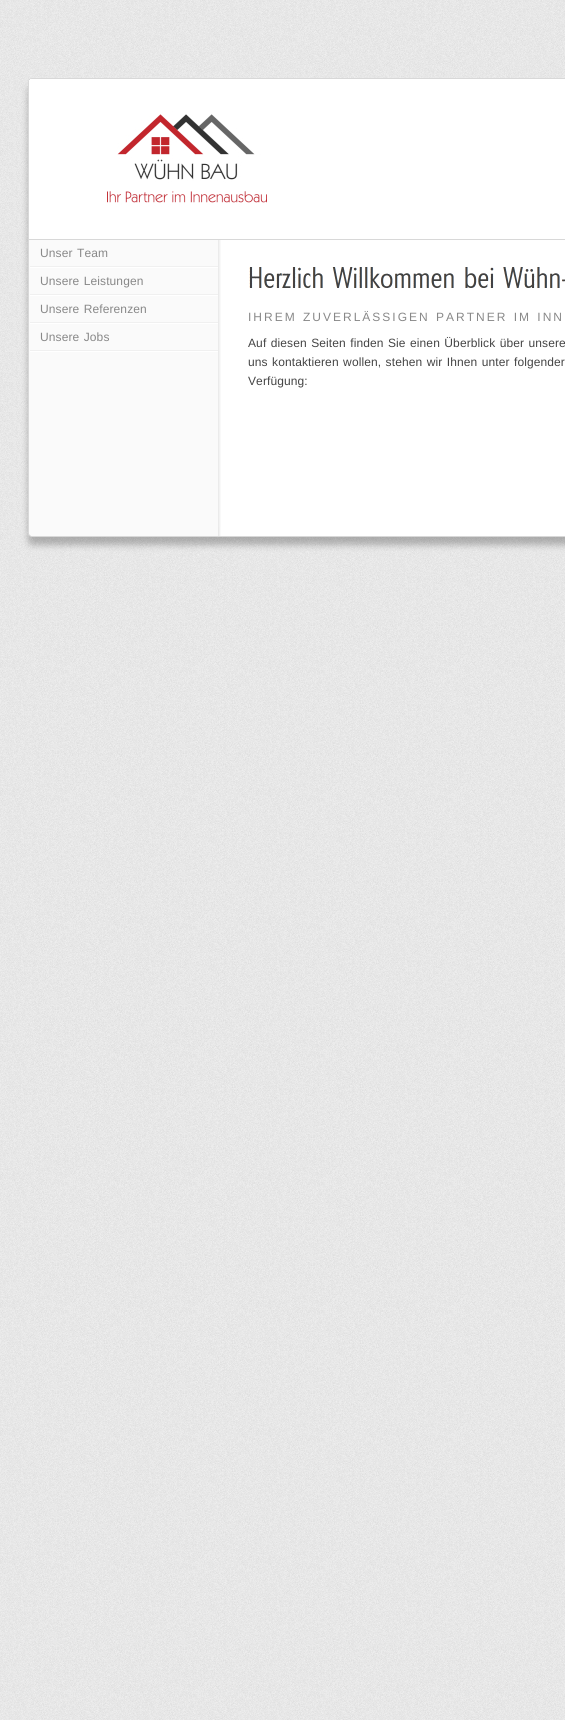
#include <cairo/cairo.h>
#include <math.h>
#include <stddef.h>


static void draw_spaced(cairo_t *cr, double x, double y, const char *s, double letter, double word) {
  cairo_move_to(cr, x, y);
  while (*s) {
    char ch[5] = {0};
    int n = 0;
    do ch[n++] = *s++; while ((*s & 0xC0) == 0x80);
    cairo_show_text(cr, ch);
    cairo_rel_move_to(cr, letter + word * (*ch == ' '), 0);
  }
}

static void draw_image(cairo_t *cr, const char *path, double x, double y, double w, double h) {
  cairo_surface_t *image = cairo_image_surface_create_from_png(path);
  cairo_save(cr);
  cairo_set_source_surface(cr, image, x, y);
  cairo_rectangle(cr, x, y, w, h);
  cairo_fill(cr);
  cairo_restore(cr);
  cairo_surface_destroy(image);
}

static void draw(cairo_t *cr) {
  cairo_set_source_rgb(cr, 1, 1, 1);
  cairo_paint(cr);
  draw_image(cr, "images/1.png", 0, 0, 565, 1720);
  draw_image(cr, "images/2.png", 8, 8, 557, 60);
  cairo_set_source_rgb(cr, 1, 1, 1);
  cairo_rectangle(cr, 221, 79, 344, 448);
  cairo_fill(cr);
  draw_image(cr, "images/3.png", 8, 98, 213, 429);
  draw_image(cr, "images/5.png", 29, 79, 238, 160);
  draw_image(cr, "images/4.png", 8, 68, 557, 30);
  cairo_set_source_rgb(cr, 216 / 255.0, 216 / 255.0, 216 / 255.0);
  cairo_rectangle(cr, 29, 239, 536, 1);
  cairo_fill(cr);
  draw_image(cr, "images/6.png", 30, 266, 188, 2);
  draw_image(cr, "images/6.png", 30, 294, 188, 2);
  draw_image(cr, "images/6.png", 30, 322, 188, 2);
  draw_image(cr, "images/6.png", 30, 350, 188, 2);
  draw_image(cr, "images/7.png", 249, 267, 316, 21);
  draw_image(cr, "images/8.png", 8, 527, 557, 30);
  cairo_select_font_face(cr, "Liberation Sans", CAIRO_FONT_SLANT_NORMAL, CAIRO_FONT_WEIGHT_NORMAL);
  cairo_set_font_size(cr, 12);
  cairo_set_source_rgb(cr, 136 / 255.0, 136 / 255.0, 136 / 255.0);
  draw_spaced(cr, 40, 257, "Unser Team", 0.1, 1);
  draw_spaced(cr, 40, 285, "Unsere Leistungen", 0.1, 1);
  draw_spaced(cr, 40, 313, "Unsere Referenzen", 0.1, 1);
  draw_spaced(cr, 40, 341, "Unsere Jobs", 0.1, 1);
  draw_spaced(cr, 248, 321, "IHREM ZUVERLÄSSIGEN PARTNER IM INN", 2, 1);
  cairo_set_source_rgb(cr, 68 / 255.0, 68 / 255.0, 68 / 255.0);
  draw_spaced(cr, 248, 347, "Auf diesen Seiten finden Sie einen Überblick über unsere", 0.1, 1);
  draw_spaced(cr, 248, 366, "uns kontaktieren wollen, stehen wir Ihnen unter folgender", 0.1, 1);
  draw_spaced(cr, 248, 385, "Verfügung:", 0.1, 0);
}

int main(void) {
  cairo_surface_t *surface = cairo_image_surface_create(CAIRO_FORMAT_RGB24, 565, 1720);
  cairo_t *cr = cairo_create(surface);
  cairo_font_options_t *options = cairo_font_options_create();
  cairo_font_options_set_hint_metrics(options, CAIRO_HINT_METRICS_OFF);
  cairo_font_options_set_hint_style(options, CAIRO_HINT_STYLE_NONE);
  cairo_set_font_options(cr, options);
  cairo_set_miter_limit(cr, 4);
  draw(cr);
  cairo_surface_write_to_png(surface, "out.png");
  cairo_font_options_destroy(options);
  cairo_destroy(cr);
  cairo_surface_destroy(surface);
  return 0;
}
